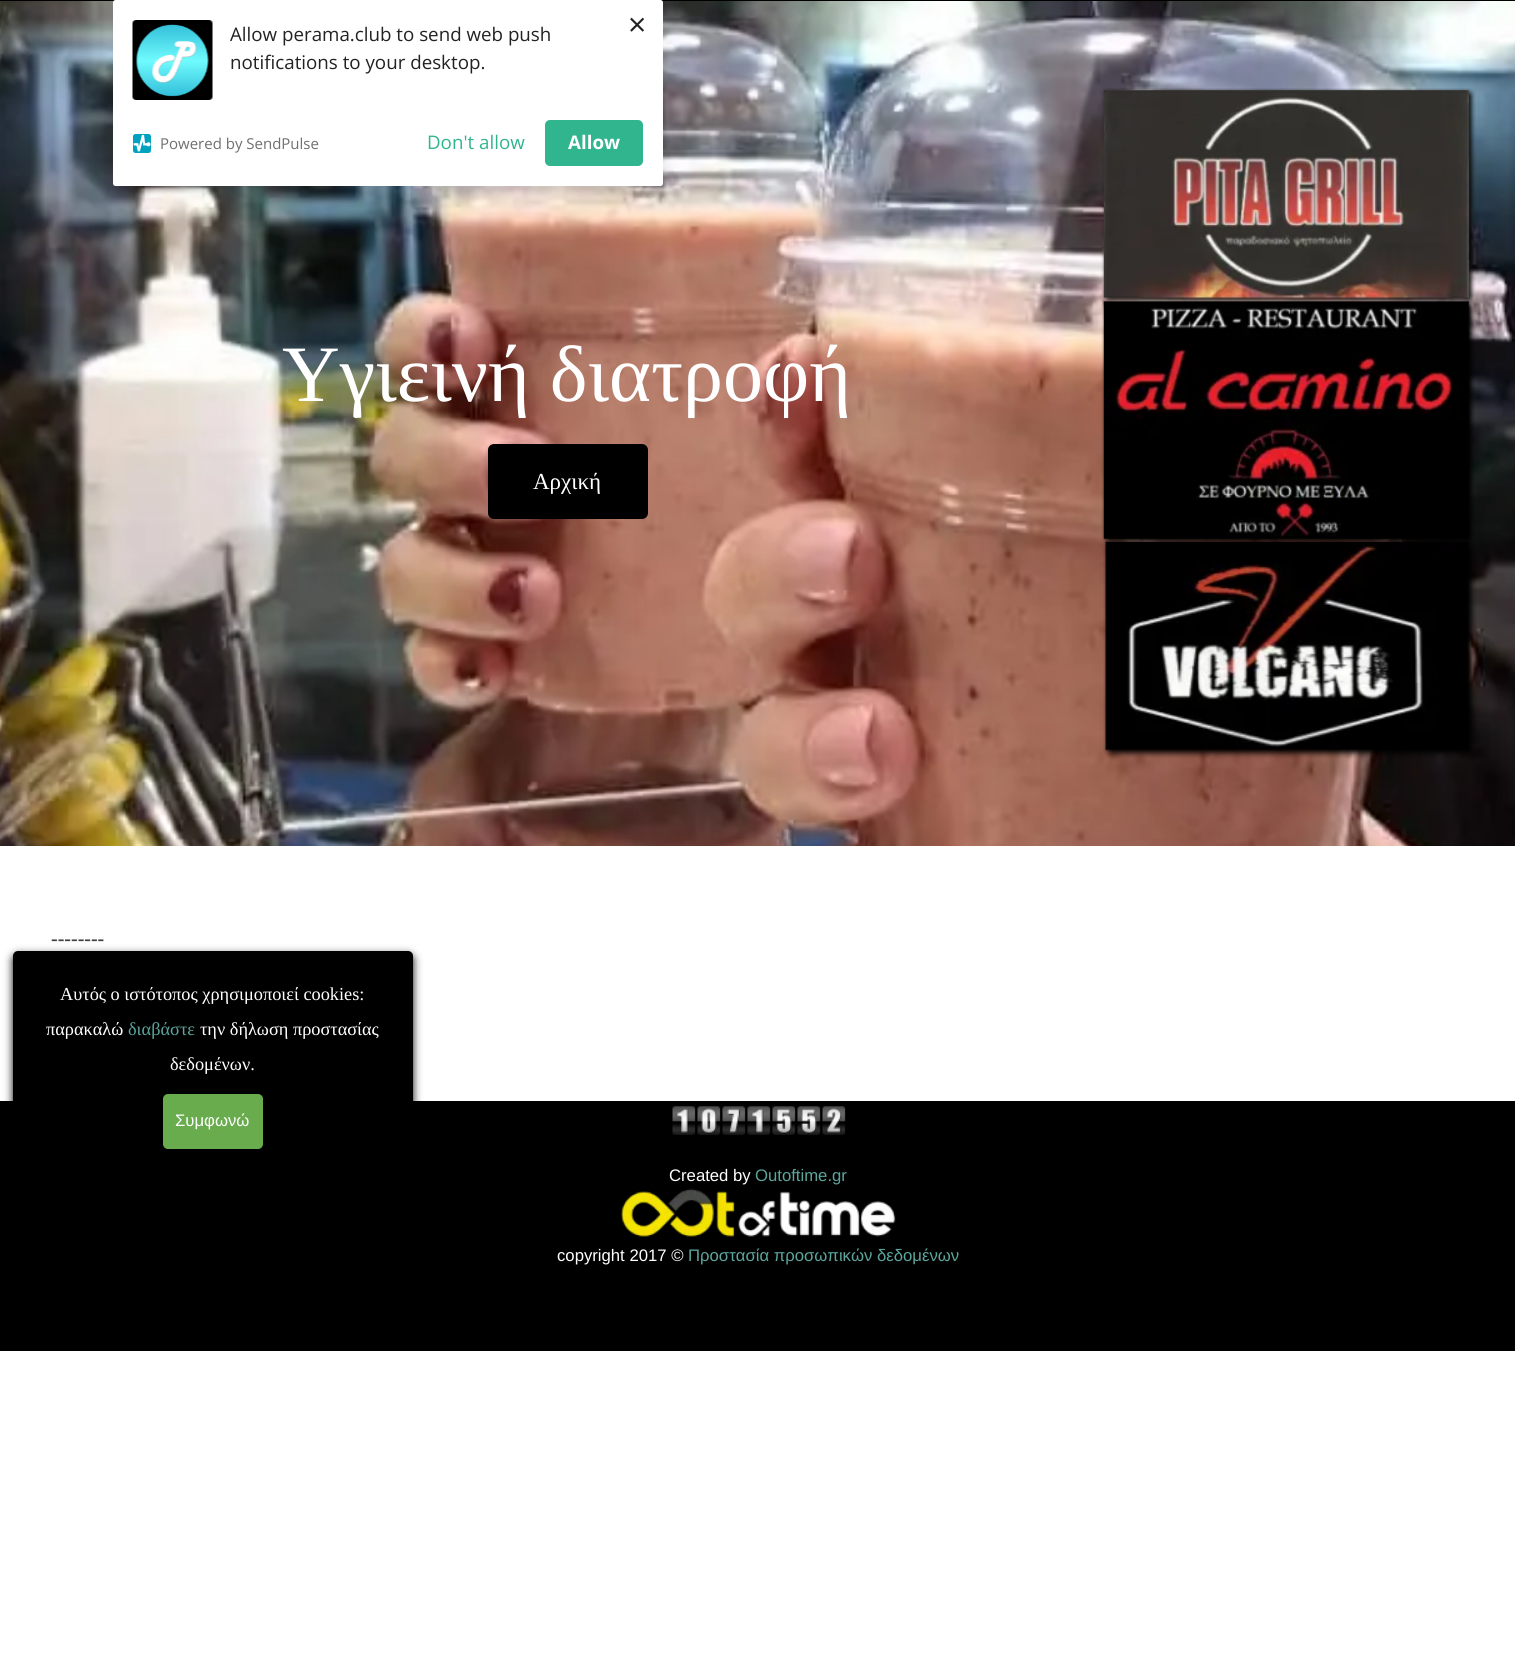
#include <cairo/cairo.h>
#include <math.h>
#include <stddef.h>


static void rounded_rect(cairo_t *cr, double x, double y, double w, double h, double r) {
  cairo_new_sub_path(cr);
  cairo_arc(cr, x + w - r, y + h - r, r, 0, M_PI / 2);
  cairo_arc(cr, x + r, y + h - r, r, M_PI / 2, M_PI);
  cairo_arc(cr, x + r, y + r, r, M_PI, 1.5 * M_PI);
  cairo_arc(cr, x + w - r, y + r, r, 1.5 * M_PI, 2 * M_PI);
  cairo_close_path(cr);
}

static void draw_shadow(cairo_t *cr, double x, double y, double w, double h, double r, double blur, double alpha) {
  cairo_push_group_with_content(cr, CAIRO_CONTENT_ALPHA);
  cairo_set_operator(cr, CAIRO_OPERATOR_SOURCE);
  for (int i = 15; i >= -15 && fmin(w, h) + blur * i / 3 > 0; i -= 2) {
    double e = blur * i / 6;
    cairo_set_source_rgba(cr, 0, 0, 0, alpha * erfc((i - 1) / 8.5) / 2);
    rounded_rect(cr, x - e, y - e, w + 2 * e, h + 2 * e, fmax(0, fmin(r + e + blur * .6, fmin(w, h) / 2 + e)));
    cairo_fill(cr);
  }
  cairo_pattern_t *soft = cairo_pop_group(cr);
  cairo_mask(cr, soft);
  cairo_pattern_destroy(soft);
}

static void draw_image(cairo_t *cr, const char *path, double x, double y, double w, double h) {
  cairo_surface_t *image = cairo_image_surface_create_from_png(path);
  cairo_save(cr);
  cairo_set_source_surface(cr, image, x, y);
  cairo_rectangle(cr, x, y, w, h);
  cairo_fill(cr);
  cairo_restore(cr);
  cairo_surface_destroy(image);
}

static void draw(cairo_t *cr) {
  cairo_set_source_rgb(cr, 1, 1, 1);
  cairo_paint(cr);
  cairo_set_source_rgb(cr, 0, 0, 0);
  cairo_rectangle(cr, 0, 0, 1515, 1);
  cairo_fill(cr);
  draw_image(cr, "images/3.png", 0, 1, 1515, 845);
  cairo_set_source_rgb(cr, 0, 0, 0);
  draw_shadow(cr, 113, 5, 550, 186, 2.5, 6, 0.1);
  cairo_set_source_rgb(cr, 1, 1, 1);
  rounded_rect(cr, 113, 0, 550, 186, 2.5);
  cairo_fill(cr);
  draw_image(cr, "images/1.png", 132, 20, 81, 80);
  draw_image(cr, "images/2.png", 133, 134, 18, 19);
  cairo_set_source_rgb(cr, 49 / 255.0, 181 / 255.0, 142 / 255.0);
  rounded_rect(cr, 545, 120, 98, 46, 5);
  cairo_fill(cr);
  cairo_set_source_rgb(cr, 0, 0, 0);
  rounded_rect(cr, 488, 444, 160, 75, 6);
  cairo_fill(cr);
  draw_image(cr, "images/5.png", 1101, 299, 375, 247);
  draw_image(cr, "images/4.png", 1101, 88, 375, 216);
  draw_image(cr, "images/6.png", 1103, 540, 374, 219);
  cairo_rectangle(cr, 0, 1101, 1515, 250);
  cairo_fill(cr);
  draw_image(cr, "images/7.png", 672, 1106, 174, 29);
  draw_image(cr, "images/8.png", 621, 1188, 275, 49);
  cairo_set_source_rgb(cr, 0, 0, 0);
  draw_shadow(cr, 13, 955, 400, 223, 5, 4.5, 1);
  cairo_set_source_rgb(cr, 0, 0, 0);
  rounded_rect(cr, 13, 951, 400, 223, 5);
  cairo_fill(cr);
  cairo_set_source_rgb(cr, 105 / 255.0, 172 / 255.0, 77 / 255.0);
  rounded_rect(cr, 163, 1094, 100, 55, 5);
  cairo_fill(cr);
  cairo_select_font_face(cr, "Open Sans", CAIRO_FONT_SLANT_NORMAL, CAIRO_FONT_WEIGHT_NORMAL);
  cairo_set_font_size(cr, 32);
  cairo_set_source_rgb(cr, 34 / 255.0, 34 / 255.0, 34 / 255.0);
  cairo_move_to(cr, 628, 36);
  cairo_show_text(cr, "×");
  cairo_set_font_size(cr, 18.75);
  cairo_move_to(cr, 230, 41);
  cairo_show_text(cr, "Allow perama.club to send web push");
  cairo_move_to(cr, 230, 69);
  cairo_show_text(cr, "notifications to your desktop.");
  cairo_set_font_size(cr, 15);
  cairo_set_source_rgb(cr, 111 / 255.0, 111 / 255.0, 111 / 255.0);
  cairo_move_to(cr, 160, 149);
  cairo_show_text(cr, "Powered by SendPulse");
  cairo_set_font_size(cr, 18.75);
  cairo_set_source_rgb(cr, 49 / 255.0, 181 / 255.0, 142 / 255.0);
  cairo_move_to(cr, 427, 149);
  cairo_show_text(cr, "Don't allow");
  cairo_select_font_face(cr, "Open Sans", CAIRO_FONT_SLANT_NORMAL, CAIRO_FONT_WEIGHT_BOLD);
  cairo_set_source_rgb(cr, 1, 1, 1);
  cairo_move_to(cr, 568, 149);
  cairo_show_text(cr, "Allow");
  cairo_select_font_face(cr, "Liberation Serif", CAIRO_FONT_SLANT_NORMAL, CAIRO_FONT_WEIGHT_NORMAL);
  cairo_set_font_size(cr, 80);
  cairo_move_to(cr, 282, 401);
  cairo_show_text(cr, "Υγιεινή διατροφή");
  cairo_set_font_size(cr, 23);
  cairo_move_to(cr, 533, 489);
  cairo_show_text(cr, "Αρχική");
  cairo_select_font_face(cr, "Liberation Serif", CAIRO_FONT_SLANT_NORMAL, CAIRO_FONT_WEIGHT_BOLD);
  cairo_set_font_size(cr, 20);
  cairo_set_source_rgb(cr, 64 / 255.0, 64 / 255.0, 64 / 255.0);
  cairo_move_to(cr, 51, 945);
  cairo_show_text(cr, "--------");
  cairo_select_font_face(cr, "Liberation Sans", CAIRO_FONT_SLANT_NORMAL, CAIRO_FONT_WEIGHT_NORMAL);
  cairo_set_font_size(cr, 16.7);
  cairo_set_source_rgb(cr, 1, 1, 1);
  cairo_move_to(cr, 669, 1181);
  cairo_show_text(cr, "Created by");
  cairo_set_source_rgb(cr, 92 / 255.0, 166 / 255.0, 157 / 255.0);
  cairo_move_to(cr, 755, 1181);
  cairo_show_text(cr, "Outoftime.gr");
  cairo_set_source_rgb(cr, 1, 1, 1);
  cairo_move_to(cr, 557, 1261);
  cairo_show_text(cr, "copyright 2017 ©");
  cairo_set_source_rgb(cr, 92 / 255.0, 166 / 255.0, 157 / 255.0);
  cairo_move_to(cr, 688, 1261);
  cairo_show_text(cr, "Προστασία προσωπικών δεδομένων");
  cairo_select_font_face(cr, "Liberation Serif", CAIRO_FONT_SLANT_NORMAL, CAIRO_FONT_WEIGHT_NORMAL);
  cairo_set_font_size(cr, 18.3);
  cairo_set_source_rgb(cr, 1, 1, 1);
  cairo_move_to(cr, 60, 1000);
  cairo_show_text(cr, "Αυτός ο ιστότοπος χρησιμοποιεί cookies:");
  cairo_move_to(cr, 46, 1035);
  cairo_show_text(cr, "παρακαλώ");
  cairo_set_source_rgb(cr, 92 / 255.0, 166 / 255.0, 157 / 255.0);
  cairo_move_to(cr, 128, 1035);
  cairo_show_text(cr, "διαβάστε");
  cairo_set_source_rgb(cr, 1, 1, 1);
  cairo_move_to(cr, 200, 1035);
  cairo_show_text(cr, "την δήλωση προστασίας");
  cairo_move_to(cr, 170, 1070);
  cairo_show_text(cr, "δεδομένων.");
  cairo_select_font_face(cr, "Liberation Sans", CAIRO_FONT_SLANT_NORMAL, CAIRO_FONT_WEIGHT_NORMAL);
  cairo_set_font_size(cr, 16.7);
  cairo_move_to(cr, 175, 1126);
  cairo_show_text(cr, "Συμφωνώ");
}

int main(void) {
  cairo_surface_t *surface = cairo_image_surface_create(CAIRO_FORMAT_RGB24, 1515, 1660);
  cairo_t *cr = cairo_create(surface);
  cairo_font_options_t *options = cairo_font_options_create();
  cairo_font_options_set_hint_metrics(options, CAIRO_HINT_METRICS_OFF);
  cairo_font_options_set_hint_style(options, CAIRO_HINT_STYLE_NONE);
  cairo_set_font_options(cr, options);
  cairo_set_miter_limit(cr, 4);
  draw(cr);
  cairo_surface_write_to_png(surface, "out.png");
  cairo_font_options_destroy(options);
  cairo_destroy(cr);
  cairo_surface_destroy(surface);
  return 0;
}
